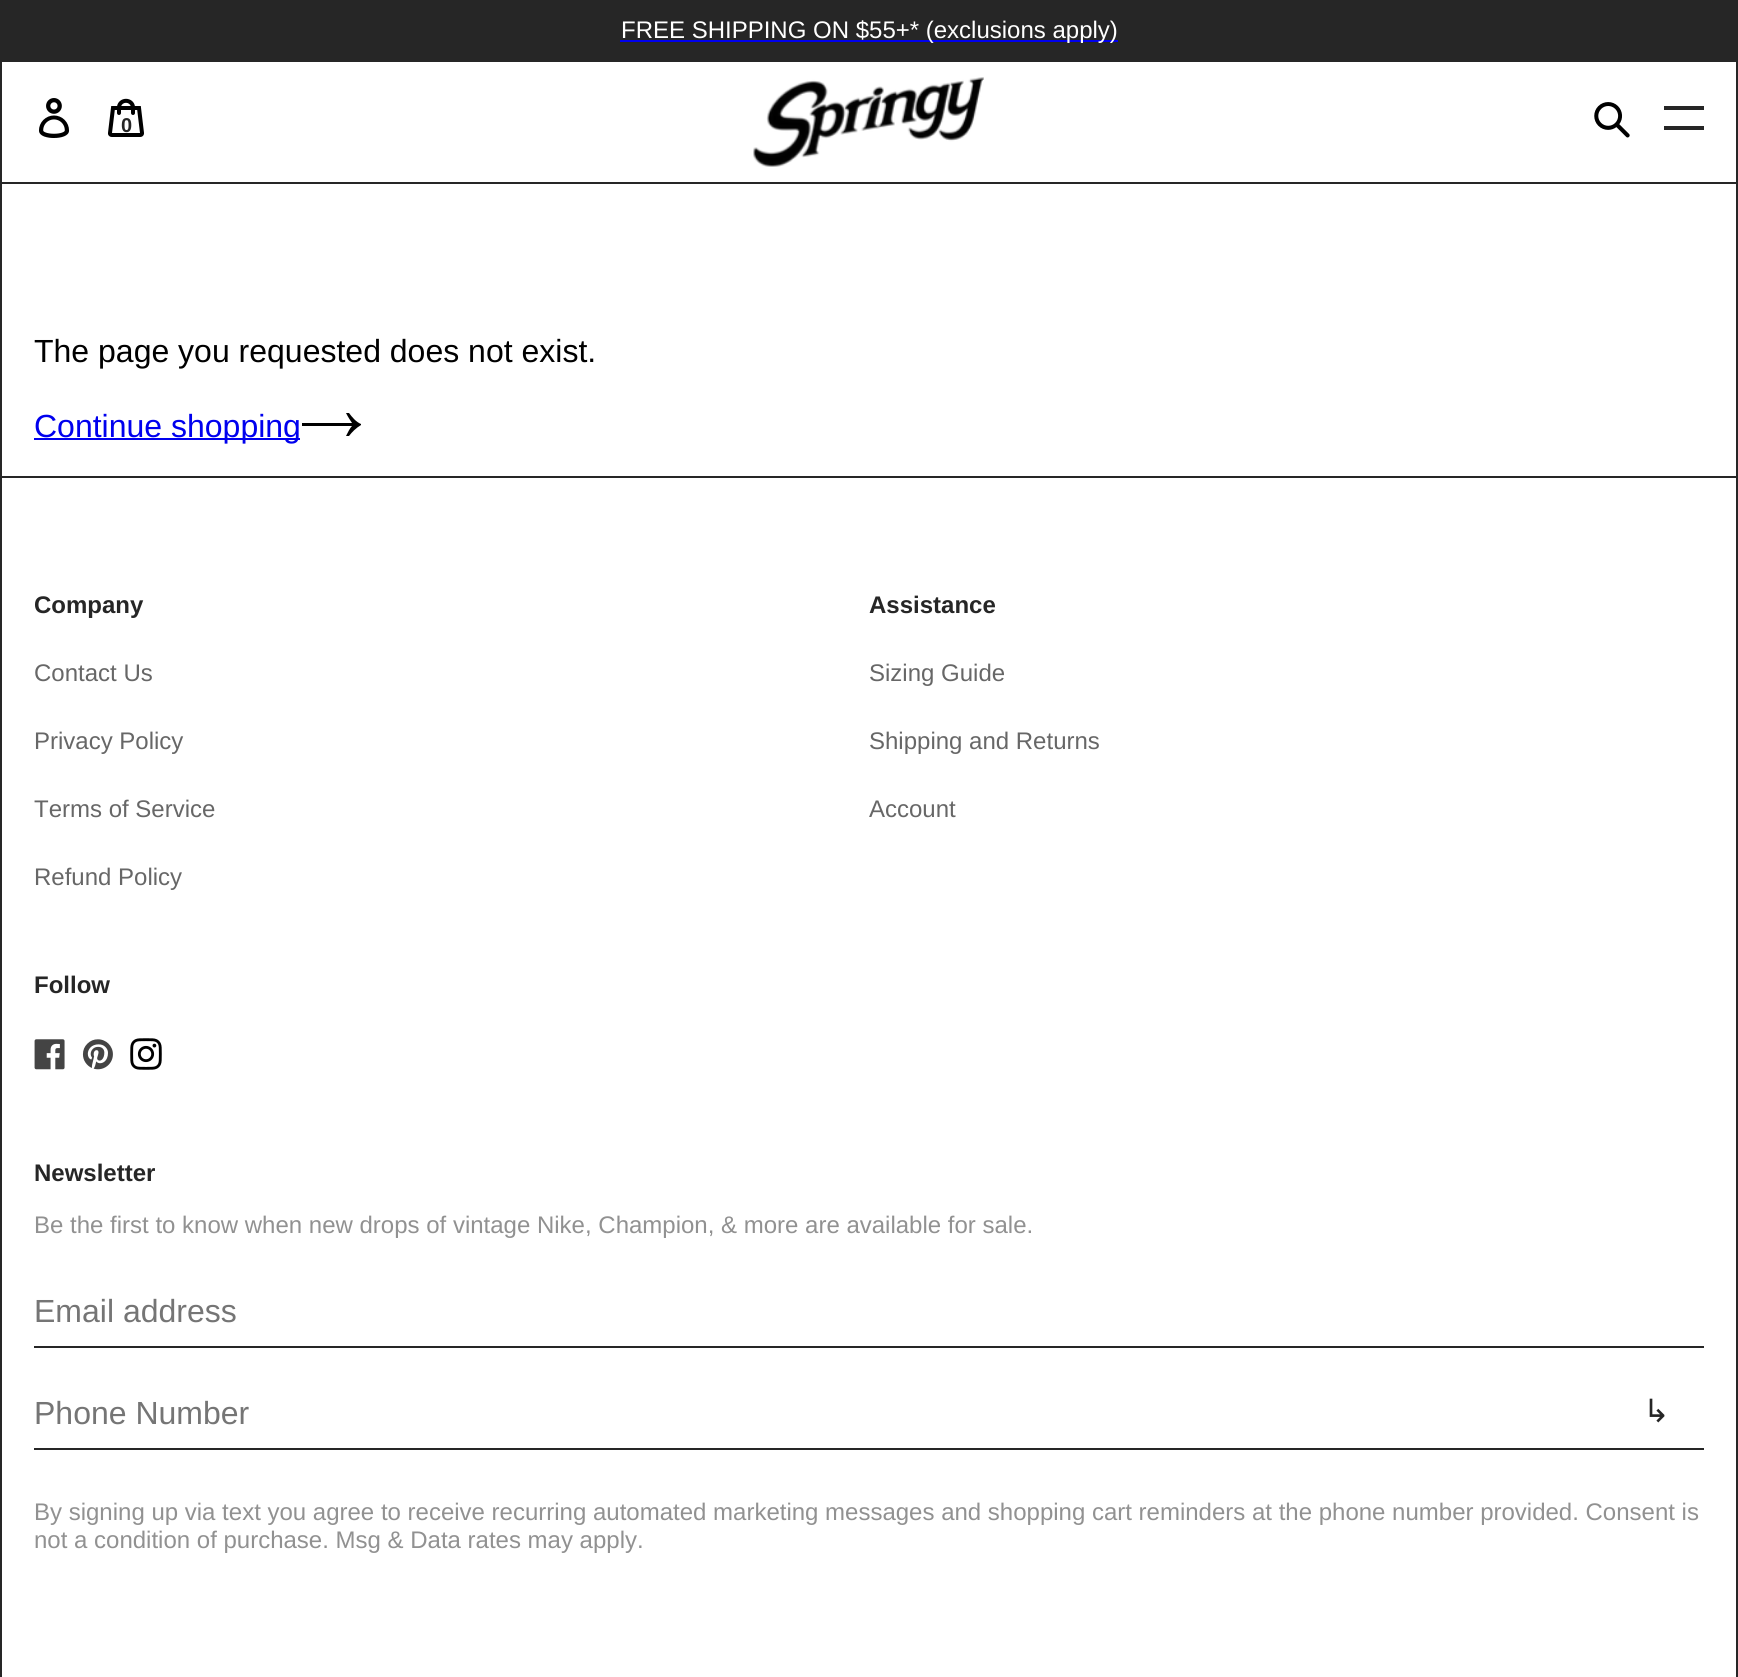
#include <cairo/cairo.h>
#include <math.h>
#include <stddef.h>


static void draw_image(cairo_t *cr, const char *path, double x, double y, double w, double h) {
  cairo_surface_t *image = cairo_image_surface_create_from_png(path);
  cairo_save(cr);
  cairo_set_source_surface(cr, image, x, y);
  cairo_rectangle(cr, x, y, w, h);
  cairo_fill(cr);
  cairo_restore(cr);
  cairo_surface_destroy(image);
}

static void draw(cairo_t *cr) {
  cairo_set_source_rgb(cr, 1, 1, 1);
  cairo_paint(cr);
  cairo_set_source_rgb(cr, 38 / 255.0, 38 / 255.0, 38 / 255.0);
  cairo_rectangle(cr, 0, 0, 1738, 60);
  cairo_fill(cr);
  cairo_set_source_rgb(cr, 0, 0, 238 / 255.0);
  cairo_rectangle(cr, 620, 40, 498, 2);
  cairo_fill(cr);
  cairo_rectangle(cr, 1, 61, 1736, 122);
  cairo_set_source_rgb(cr, 38 / 255.0, 38 / 255.0, 38 / 255.0);
  cairo_stroke(cr);
  draw_image(cr, "images/1.png", 39, 98, 31, 40);
  draw_image(cr, "images/2.png", 108, 98, 36, 39);
  draw_image(cr, "images/3.png", 753, 77, 231, 90);
  draw_image(cr, "images/4.png", 1594, 102, 36, 36);
  cairo_rectangle(cr, 1664, 106, 40, 4);
  cairo_fill(cr);
  cairo_rectangle(cr, 1664, 126, 40, 4);
  cairo_fill(cr);
  cairo_rectangle(cr, 1736, 184, 2, 292);
  cairo_fill(cr);
  cairo_rectangle(cr, 0, 184, 2, 292);
  cairo_fill(cr);
  cairo_set_source_rgb(cr, 0, 0, 238 / 255.0);
  cairo_rectangle(cr, 34, 438, 266, 2);
  cairo_fill(cr);
  cairo_set_source_rgb(cr, 0, 0, 0);
  cairo_set_fill_rule(cr, CAIRO_FILL_RULE_EVEN_ODD);
  cairo_new_path(cr);
  cairo_move_to(cr, 349, 413);
  cairo_curve_to(cr, 352, 417, 356, 422, 361, 424);
  cairo_line_to(cr, 361, 425);
  cairo_curve_to(cr, 356, 428, 352, 432, 349, 436);
  cairo_line_to(cr, 346, 436);
  cairo_curve_to(cr, 348, 432, 350, 428, 352, 426);
  cairo_line_to(cr, 302, 426);
  cairo_line_to(cr, 302, 423);
  cairo_line_to(cr, 352, 423);
  cairo_curve_to(cr, 350, 420, 348, 417, 346, 413);
  cairo_close_path(cr);
  cairo_fill(cr);
  cairo_rectangle(cr, 1, 477, 1736, 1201);
  cairo_set_source_rgb(cr, 38 / 255.0, 38 / 255.0, 38 / 255.0);
  cairo_stroke(cr);
  draw_image(cr, "images/5.png", 34, 1039, 31, 31);
  draw_image(cr, "images/6.png", 82, 1039, 31, 31);
  draw_image(cr, "images/7.png", 130, 1038, 32, 32);
  cairo_rectangle(cr, 34, 1346, 1670, 2);
  cairo_fill(cr);
  cairo_rectangle(cr, 34, 1448, 1670, 2);
  cairo_fill(cr);
  cairo_select_font_face(cr, "Liberation Sans", CAIRO_FONT_SLANT_NORMAL, CAIRO_FONT_WEIGHT_NORMAL);
  cairo_set_font_size(cr, 24);
  cairo_set_source_rgb(cr, 1, 1, 1);
  cairo_move_to(cr, 621, 38);
  cairo_show_text(cr, "FREE SHIPPING ON $55+* (exclusions apply)");
  cairo_select_font_face(cr, "Liberation Sans", CAIRO_FONT_SLANT_NORMAL, CAIRO_FONT_WEIGHT_BOLD);
  cairo_set_font_size(cr, 20);
  cairo_set_source_rgb(cr, 38 / 255.0, 38 / 255.0, 38 / 255.0);
  cairo_move_to(cr, 121, 132);
  cairo_show_text(cr, "0");
  cairo_select_font_face(cr, "Liberation Sans", CAIRO_FONT_SLANT_NORMAL, CAIRO_FONT_WEIGHT_NORMAL);
  cairo_set_font_size(cr, 32);
  cairo_set_source_rgb(cr, 0, 0, 0);
  cairo_move_to(cr, 34, 362);
  cairo_show_text(cr, "The page you requested does not exist.");
  cairo_set_source_rgb(cr, 0, 0, 238 / 255.0);
  cairo_move_to(cr, 34, 437);
  cairo_show_text(cr, "Continue shopping");
  cairo_select_font_face(cr, "Liberation Sans", CAIRO_FONT_SLANT_NORMAL, CAIRO_FONT_WEIGHT_BOLD);
  cairo_set_font_size(cr, 24);
  cairo_set_source_rgb(cr, 38 / 255.0, 38 / 255.0, 38 / 255.0);
  cairo_move_to(cr, 34, 613);
  cairo_show_text(cr, "Company");
  cairo_select_font_face(cr, "Liberation Sans", CAIRO_FONT_SLANT_NORMAL, CAIRO_FONT_WEIGHT_NORMAL);
  cairo_set_source_rgb(cr, 103 / 255.0, 103 / 255.0, 103 / 255.0);
  cairo_move_to(cr, 34, 681);
  cairo_show_text(cr, "Contact Us");
  cairo_move_to(cr, 34, 749);
  cairo_show_text(cr, "Privacy Policy");
  cairo_move_to(cr, 34, 817);
  cairo_show_text(cr, "Terms of Service");
  cairo_move_to(cr, 34, 885);
  cairo_show_text(cr, "Refund Policy");
  cairo_select_font_face(cr, "Liberation Sans", CAIRO_FONT_SLANT_NORMAL, CAIRO_FONT_WEIGHT_BOLD);
  cairo_set_source_rgb(cr, 38 / 255.0, 38 / 255.0, 38 / 255.0);
  cairo_move_to(cr, 34, 993);
  cairo_show_text(cr, "Follow");
  cairo_move_to(cr, 869, 613);
  cairo_show_text(cr, "Assistance");
  cairo_select_font_face(cr, "Liberation Sans", CAIRO_FONT_SLANT_NORMAL, CAIRO_FONT_WEIGHT_NORMAL);
  cairo_set_source_rgb(cr, 103 / 255.0, 103 / 255.0, 103 / 255.0);
  cairo_move_to(cr, 869, 681);
  cairo_show_text(cr, "Sizing Guide");
  cairo_move_to(cr, 869, 749);
  cairo_show_text(cr, "Shipping and Returns");
  cairo_move_to(cr, 869, 817);
  cairo_show_text(cr, "Account");
  cairo_select_font_face(cr, "Liberation Sans", CAIRO_FONT_SLANT_NORMAL, CAIRO_FONT_WEIGHT_BOLD);
  cairo_set_source_rgb(cr, 38 / 255.0, 38 / 255.0, 38 / 255.0);
  cairo_move_to(cr, 34, 1181);
  cairo_show_text(cr, "Newsletter");
  cairo_select_font_face(cr, "Liberation Sans", CAIRO_FONT_SLANT_NORMAL, CAIRO_FONT_WEIGHT_NORMAL);
  cairo_set_source_rgb(cr, 145 / 255.0, 145 / 255.0, 145 / 255.0);
  cairo_move_to(cr, 34, 1233);
  cairo_show_text(cr, "Be the first to know when new drops of vintage Nike, Champion, & more are available for sale.");
  cairo_set_font_size(cr, 32);
  cairo_set_source_rgb(cr, 117 / 255.0, 117 / 255.0, 117 / 255.0);
  cairo_move_to(cr, 34, 1322);
  cairo_show_text(cr, "Email address");
  cairo_move_to(cr, 34, 1424);
  cairo_show_text(cr, "Phone Number");
  cairo_select_font_face(cr, "DejaVu Sans", CAIRO_FONT_SLANT_NORMAL, CAIRO_FONT_WEIGHT_NORMAL);
  cairo_set_source_rgb(cr, 38 / 255.0, 38 / 255.0, 38 / 255.0);
  cairo_move_to(cr, 1643, 1422);
  cairo_show_text(cr, "↳");
  cairo_select_font_face(cr, "Liberation Sans", CAIRO_FONT_SLANT_NORMAL, CAIRO_FONT_WEIGHT_NORMAL);
  cairo_set_font_size(cr, 24);
  cairo_set_source_rgb(cr, 145 / 255.0, 145 / 255.0, 145 / 255.0);
  cairo_move_to(cr, 34, 1520);
  cairo_show_text(cr, "By signing up via text you agree to receive recurring automated marketing messages and shopping cart reminders at the phone number provided. Consent is");
  cairo_move_to(cr, 34, 1548);
  cairo_show_text(cr, "not a condition of purchase. Msg & Data rates may apply.");
}

int main(void) {
  cairo_surface_t *surface = cairo_image_surface_create(CAIRO_FORMAT_RGB24, 1738, 1677);
  cairo_t *cr = cairo_create(surface);
  cairo_font_options_t *options = cairo_font_options_create();
  cairo_font_options_set_hint_metrics(options, CAIRO_HINT_METRICS_OFF);
  cairo_font_options_set_hint_style(options, CAIRO_HINT_STYLE_NONE);
  cairo_set_font_options(cr, options);
  cairo_set_miter_limit(cr, 4);
  draw(cr);
  cairo_surface_write_to_png(surface, "out.png");
  cairo_font_options_destroy(options);
  cairo_destroy(cr);
  cairo_surface_destroy(surface);
  return 0;
}
